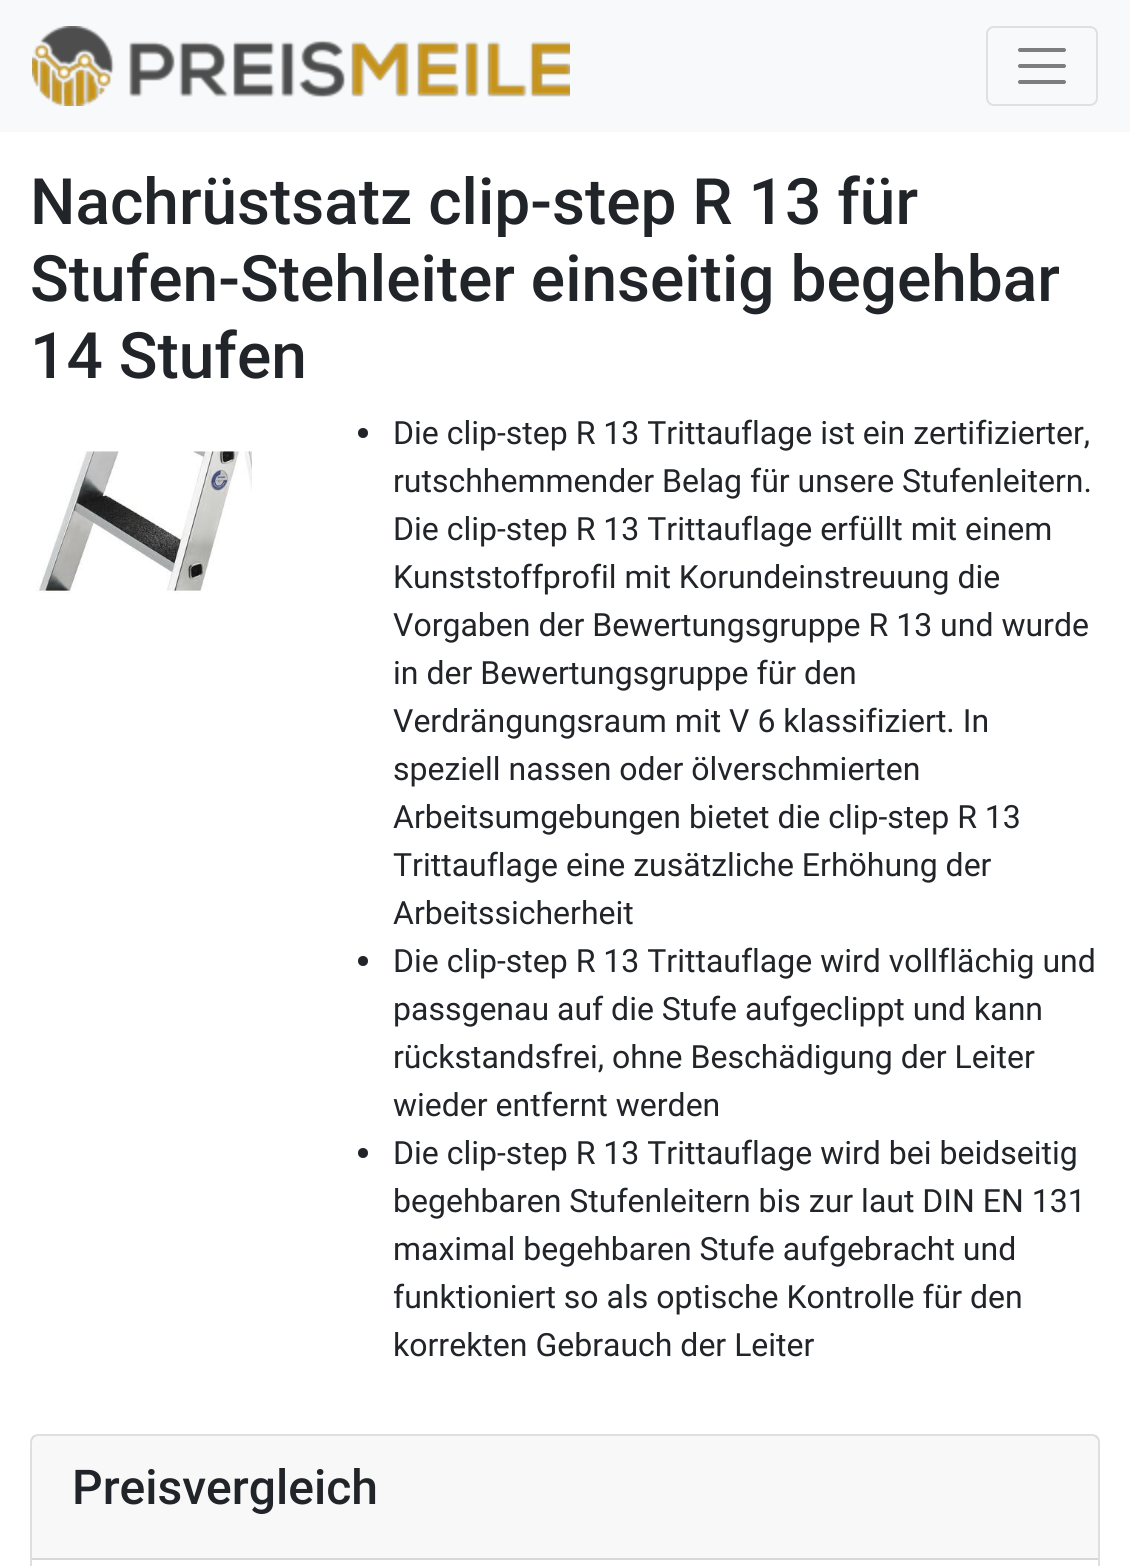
#include <cairo/cairo.h>
#include <math.h>
#include <stddef.h>


static void rounded_rect(cairo_t *cr, double x, double y, double w, double h, double r) {
  cairo_new_sub_path(cr);
  cairo_arc(cr, x + w - r, y + h - r, r, 0, M_PI / 2);
  cairo_arc(cr, x + r, y + h - r, r, M_PI / 2, M_PI);
  cairo_arc(cr, x + r, y + r, r, M_PI, 1.5 * M_PI);
  cairo_arc(cr, x + w - r, y + r, r, 1.5 * M_PI, 2 * M_PI);
  cairo_close_path(cr);
}

static void draw_image(cairo_t *cr, const char *path, double x, double y, double w, double h) {
  cairo_surface_t *image = cairo_image_surface_create_from_png(path);
  cairo_save(cr);
  cairo_set_source_surface(cr, image, x, y);
  cairo_rectangle(cr, x, y, w, h);
  cairo_fill(cr);
  cairo_restore(cr);
  cairo_surface_destroy(image);
}

static void draw(cairo_t *cr) {
  cairo_set_source_rgb(cr, 1, 1, 1);
  cairo_paint(cr);
  cairo_set_source_rgb(cr, 248 / 255.0, 249 / 255.0, 250 / 255.0);
  cairo_rectangle(cr, 0, 0, 1130, 132);
  cairo_fill(cr);
  draw_image(cr, "images/1.png", 32, 26, 538, 80);
  rounded_rect(cr, 987, 27, 110, 78, 7);
  cairo_set_source_rgb(cr, 223 / 255.0, 224 / 255.0, 225 / 255.0);
  cairo_stroke(cr);
  cairo_new_path(cr);
  cairo_move_to(cr, 1020, 50);
  cairo_line_to(cr, 1064, 50);
  cairo_move_to(cr, 1020, 66);
  cairo_line_to(cr, 1064, 66);
  cairo_move_to(cr, 1020, 82);
  cairo_line_to(cr, 1064, 82);
  cairo_set_source_rgb(cr, 124 / 255.0, 125 / 255.0, 125 / 255.0);
  cairo_set_line_width(cr, 4);
  cairo_set_line_cap(cr, CAIRO_LINE_CAP_ROUND);
  cairo_stroke(cr);
  draw_image(cr, "images/2.png", 36, 451, 216, 143);
  cairo_set_source_rgb(cr, 33 / 255.0, 37 / 255.0, 41 / 255.0);
  cairo_arc(cr, 363, 433, 5, 0, 2 * M_PI);
  cairo_fill(cr);
  cairo_arc(cr, 363, 961, 5, 0, 2 * M_PI);
  cairo_fill(cr);
  cairo_arc(cr, 363, 1153, 5, 0, 2 * M_PI);
  cairo_fill(cr);
  rounded_rect(cr, 31, 1435, 1068, 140, 7);
  cairo_set_source_rgb(cr, 223 / 255.0, 223 / 255.0, 223 / 255.0);
  cairo_set_line_width(cr, 2);
  cairo_set_line_cap(cr, CAIRO_LINE_CAP_BUTT);
  cairo_stroke(cr);
  cairo_set_source_rgba(cr, 0, 0, 0, 0.03);
  cairo_rectangle(cr, 32, 1436, 1066, 122);
  cairo_fill(cr);
  cairo_set_source_rgb(cr, 216 / 255.0, 216 / 255.0, 216 / 255.0);
  cairo_rectangle(cr, 32, 1558, 1066, 2);
  cairo_fill(cr);
  cairo_select_font_face(cr, "Roboto Medium", CAIRO_FONT_SLANT_NORMAL, CAIRO_FONT_WEIGHT_NORMAL);
  cairo_set_font_size(cr, 64);
  cairo_set_source_rgb(cr, 33 / 255.0, 37 / 255.0, 41 / 255.0);
  cairo_move_to(cr, 30, 224);
  cairo_show_text(cr, "Nachrüstsatz clip-step R 13 für");
  cairo_move_to(cr, 30, 301);
  cairo_show_text(cr, "Stufen-Stehleiter einseitig begehbar");
  cairo_move_to(cr, 30, 378);
  cairo_show_text(cr, "14 Stufen");
  cairo_select_font_face(cr, "Roboto", CAIRO_FONT_SLANT_NORMAL, CAIRO_FONT_WEIGHT_NORMAL);
  cairo_set_font_size(cr, 32);
  cairo_move_to(cr, 393, 444);
  cairo_show_text(cr, "Die clip-step R 13 Trittauflage ist ein zertifizierter,");
  cairo_move_to(cr, 393, 492);
  cairo_show_text(cr, "rutschhemmender Belag für unsere Stufenleitern.");
  cairo_move_to(cr, 393, 540);
  cairo_show_text(cr, "Die clip-step R 13 Trittauflage erfüllt mit einem");
  cairo_move_to(cr, 393, 588);
  cairo_show_text(cr, "Kunststoffprofil mit Korundeinstreuung die");
  cairo_move_to(cr, 393, 636);
  cairo_show_text(cr, "Vorgaben der Bewertungsgruppe R 13 und wurde");
  cairo_move_to(cr, 393, 684);
  cairo_show_text(cr, "in der Bewertungsgruppe für den");
  cairo_move_to(cr, 393, 732);
  cairo_show_text(cr, "Verdrängungsraum mit V 6 klassifiziert. In");
  cairo_move_to(cr, 393, 780);
  cairo_show_text(cr, "speziell nassen oder ölverschmierten");
  cairo_move_to(cr, 393, 828);
  cairo_show_text(cr, "Arbeitsumgebungen bietet die clip-step R 13");
  cairo_move_to(cr, 393, 876);
  cairo_show_text(cr, "Trittauflage eine zusätzliche Erhöhung der");
  cairo_move_to(cr, 393, 924);
  cairo_show_text(cr, "Arbeitssicherheit");
  cairo_move_to(cr, 393, 972);
  cairo_show_text(cr, "Die clip-step R 13 Trittauflage wird vollflächig und");
  cairo_move_to(cr, 393, 1020);
  cairo_show_text(cr, "passgenau auf die Stufe aufgeclippt und kann");
  cairo_move_to(cr, 393, 1068);
  cairo_show_text(cr, "rückstandsfrei, ohne Beschädigung der Leiter");
  cairo_move_to(cr, 393, 1116);
  cairo_show_text(cr, "wieder entfernt werden");
  cairo_move_to(cr, 393, 1164);
  cairo_show_text(cr, "Die clip-step R 13 Trittauflage wird bei beidseitig");
  cairo_move_to(cr, 393, 1212);
  cairo_show_text(cr, "begehbaren Stufenleitern bis zur laut DIN EN 131");
  cairo_move_to(cr, 393, 1260);
  cairo_show_text(cr, "maximal begehbaren Stufe aufgebracht und");
  cairo_move_to(cr, 393, 1308);
  cairo_show_text(cr, "funktioniert so als optische Kontrolle für den");
  cairo_move_to(cr, 393, 1356);
  cairo_show_text(cr, "korrekten Gebrauch der Leiter");
  cairo_select_font_face(cr, "Roboto Medium", CAIRO_FONT_SLANT_NORMAL, CAIRO_FONT_WEIGHT_NORMAL);
  cairo_set_font_size(cr, 48);
  cairo_move_to(cr, 72, 1504);
  cairo_show_text(cr, "Preisvergleich");
}

int main(void) {
  cairo_surface_t *surface = cairo_image_surface_create(CAIRO_FORMAT_RGB24, 1130, 1566);
  cairo_t *cr = cairo_create(surface);
  cairo_font_options_t *options = cairo_font_options_create();
  cairo_font_options_set_hint_metrics(options, CAIRO_HINT_METRICS_OFF);
  cairo_font_options_set_hint_style(options, CAIRO_HINT_STYLE_NONE);
  cairo_set_font_options(cr, options);
  cairo_set_miter_limit(cr, 4);
  draw(cr);
  cairo_surface_write_to_png(surface, "out.png");
  cairo_font_options_destroy(options);
  cairo_destroy(cr);
  cairo_surface_destroy(surface);
  return 0;
}
